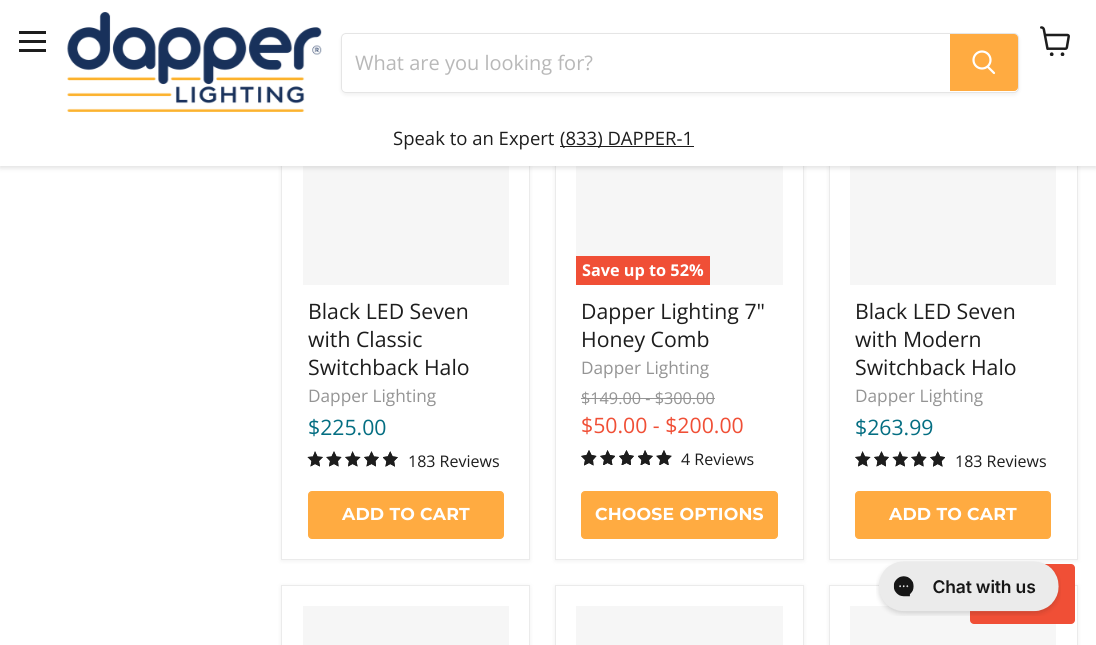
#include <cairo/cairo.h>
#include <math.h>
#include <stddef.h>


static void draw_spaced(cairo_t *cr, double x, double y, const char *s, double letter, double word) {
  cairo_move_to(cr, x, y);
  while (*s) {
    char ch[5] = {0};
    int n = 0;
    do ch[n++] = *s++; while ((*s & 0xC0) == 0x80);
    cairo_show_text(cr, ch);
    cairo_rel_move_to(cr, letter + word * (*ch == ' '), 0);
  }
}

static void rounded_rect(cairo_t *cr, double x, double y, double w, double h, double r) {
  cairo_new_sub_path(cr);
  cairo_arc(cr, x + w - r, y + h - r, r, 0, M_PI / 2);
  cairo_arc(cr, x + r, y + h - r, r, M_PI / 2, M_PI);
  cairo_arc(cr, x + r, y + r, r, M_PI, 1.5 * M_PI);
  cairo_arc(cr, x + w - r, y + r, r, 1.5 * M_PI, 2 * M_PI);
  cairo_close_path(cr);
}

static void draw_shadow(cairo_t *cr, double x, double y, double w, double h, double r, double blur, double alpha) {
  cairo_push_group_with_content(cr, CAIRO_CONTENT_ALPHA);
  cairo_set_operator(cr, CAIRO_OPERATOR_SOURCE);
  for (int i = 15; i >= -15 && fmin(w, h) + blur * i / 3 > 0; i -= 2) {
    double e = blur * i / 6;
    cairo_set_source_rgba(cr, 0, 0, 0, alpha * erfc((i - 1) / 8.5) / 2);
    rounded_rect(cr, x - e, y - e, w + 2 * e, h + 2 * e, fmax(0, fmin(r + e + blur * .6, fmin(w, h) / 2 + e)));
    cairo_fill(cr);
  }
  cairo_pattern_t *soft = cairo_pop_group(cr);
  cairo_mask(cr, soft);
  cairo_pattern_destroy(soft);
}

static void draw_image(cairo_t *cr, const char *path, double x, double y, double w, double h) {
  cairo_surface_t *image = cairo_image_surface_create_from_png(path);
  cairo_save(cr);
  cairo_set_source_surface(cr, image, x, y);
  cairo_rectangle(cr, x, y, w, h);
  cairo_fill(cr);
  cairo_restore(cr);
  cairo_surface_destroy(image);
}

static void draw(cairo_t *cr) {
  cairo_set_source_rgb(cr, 1, 1, 1);
  cairo_paint(cr);
  cairo_set_source_rgb(cr, 128 / 255.0, 128 / 255.0, 128 / 255.0);
  draw_shadow(cr, 281, 59, 249, 502, 0, 2.5, 0.11);
  cairo_set_source_rgb(cr, 1, 1, 1);
  cairo_rectangle(cr, 282, 166, 247, 393);
  cairo_fill(cr);
  cairo_rectangle(cr, 281.5, 58.5, 248, 501);
  cairo_set_source_rgb(cr, 235 / 255.0, 235 / 255.0, 235 / 255.0);
  cairo_set_line_width(cr, 1);
  cairo_stroke(cr);
  cairo_set_source_rgb(cr, 246 / 255.0, 246 / 255.0, 246 / 255.0);
  cairo_rectangle(cr, 303, 166, 206, 119);
  cairo_fill(cr);
  cairo_set_source_rgb(cr, 128 / 255.0, 128 / 255.0, 128 / 255.0);
  draw_shadow(cr, 555, 59, 249, 502, 0, 2.5, 0.11);
  cairo_set_source_rgb(cr, 1, 1, 1);
  cairo_rectangle(cr, 556, 166, 247, 393);
  cairo_fill(cr);
  cairo_rectangle(cr, 555.5, 58.5, 248, 501);
  cairo_set_source_rgb(cr, 235 / 255.0, 235 / 255.0, 235 / 255.0);
  cairo_stroke(cr);
  cairo_set_source_rgb(cr, 246 / 255.0, 246 / 255.0, 246 / 255.0);
  cairo_rectangle(cr, 576, 166, 207, 119);
  cairo_fill(cr);
  cairo_set_source_rgb(cr, 128 / 255.0, 128 / 255.0, 128 / 255.0);
  draw_shadow(cr, 829, 59, 249, 502, 0, 2.5, 0.11);
  cairo_set_source_rgb(cr, 1, 1, 1);
  cairo_rectangle(cr, 830, 166, 247, 393);
  cairo_fill(cr);
  cairo_rectangle(cr, 829.5, 58.5, 248, 501);
  cairo_set_source_rgb(cr, 235 / 255.0, 235 / 255.0, 235 / 255.0);
  cairo_stroke(cr);
  cairo_set_source_rgb(cr, 246 / 255.0, 246 / 255.0, 246 / 255.0);
  cairo_rectangle(cr, 850, 166, 206, 119);
  cairo_fill(cr);
  cairo_set_source_rgb(cr, 128 / 255.0, 128 / 255.0, 128 / 255.0);
  draw_shadow(cr, 0, 1, 1096, 167, 0, 2.5, 0.25);
  cairo_set_source_rgb(cr, 1, 1, 1);
  cairo_rectangle(cr, 0, 0, 1096, 166);
  cairo_fill(cr);
  cairo_set_source_rgb(cr, 29 / 255.0, 29 / 255.0, 29 / 255.0);
  cairo_rectangle(cr, 19, 31, 27, 3);
  cairo_fill(cr);
  cairo_rectangle(cr, 19, 40, 27, 3);
  cairo_fill(cr);
  cairo_rectangle(cr, 19, 49, 27, 3);
  cairo_fill(cr);
  draw_image(cr, "images/1.png", 1040, 26, 30, 30);
  draw_image(cr, "images/2.png", 67, 12, 255, 100);
  cairo_save(cr);
  cairo_set_fill_rule(cr, CAIRO_FILL_RULE_EVEN_ODD);
  cairo_new_path(cr);
  cairo_move_to(cr, 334, 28);
  cairo_line_to(cr, 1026, 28);
  cairo_line_to(cr, 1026, 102);
  cairo_line_to(cr, 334, 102);
  cairo_close_path(cr);
  cairo_move_to(cr, 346, 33);
  cairo_line_to(cr, 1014, 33);
  cairo_curve_to(cr, 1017, 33, 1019, 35, 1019, 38);
  cairo_line_to(cr, 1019, 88);
  cairo_curve_to(cr, 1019, 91, 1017, 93, 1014, 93);
  cairo_line_to(cr, 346, 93);
  cairo_curve_to(cr, 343, 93, 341, 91, 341, 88);
  cairo_line_to(cr, 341, 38);
  cairo_curve_to(cr, 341, 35, 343, 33, 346, 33);
  cairo_close_path(cr);
  cairo_clip(cr);
  cairo_set_source_rgb(cr, 128 / 255.0, 128 / 255.0, 128 / 255.0);
  draw_shadow(cr, 341, 35, 678, 60, 5, 2, 0.11);
  cairo_restore(cr);
  rounded_rect(cr, 341.5, 33.5, 677, 59, 4.5);
  cairo_set_source_rgba(cr, 128 / 255.0, 128 / 255.0, 128 / 255.0, 0.2);
  cairo_stroke(cr);
  cairo_set_source_rgb(cr, 1, 171 / 255.0, 65 / 255.0);
  cairo_new_path(cr);
  cairo_move_to(cr, 950.5, 34.5);
  cairo_line_to(cr, 1014, 34.5);
  cairo_curve_to(cr, 1016, 34.5, 1017.5, 36, 1017.5, 38);
  cairo_line_to(cr, 1017.5, 87);
  cairo_curve_to(cr, 1017.5, 89, 1016, 90.5, 1014, 90.5);
  cairo_line_to(cr, 950.5, 90.5);
  cairo_close_path(cr);
  cairo_fill_preserve(cr);
  cairo_stroke(cr);
  cairo_new_path(cr);
  cairo_move_to(cr, 994, 73);
  cairo_line_to(cr, 988, 67);
  cairo_set_source_rgb(cr, 1, 1, 1);
  cairo_set_line_width(cr, 2.2);
  cairo_set_line_cap(cr, CAIRO_LINE_CAP_ROUND);
  cairo_stroke(cr);
  cairo_arc(cr, 982, 60, 8.5, 0, 2 * M_PI);
  cairo_set_line_cap(cr, CAIRO_LINE_CAP_BUTT);
  cairo_stroke(cr);
  cairo_set_source_rgb(cr, 29 / 255.0, 29 / 255.0, 29 / 255.0);
  cairo_rectangle(cr, 560, 146, 134, 1);
  cairo_fill(cr);
  cairo_new_path(cr);
  cairo_move_to(cr, 315, 451);
  cairo_line_to(cr, 313, 456.5);
  cairo_line_to(cr, 307.5, 457);
  cairo_line_to(cr, 311.5, 461);
  cairo_line_to(cr, 310.5, 466.5);
  cairo_line_to(cr, 315, 464);
  cairo_line_to(cr, 320, 466.5);
  cairo_line_to(cr, 319, 461);
  cairo_line_to(cr, 323, 457);
  cairo_line_to(cr, 317.5, 456.5);
  cairo_close_path(cr);
  cairo_fill(cr);
  cairo_save(cr);
  cairo_new_path(cr);
  cairo_move_to(cr, 315, 451.5);
  cairo_line_to(cr, 317.5, 456.5);
  cairo_line_to(cr, 323, 457);
  cairo_line_to(cr, 319, 461);
  cairo_line_to(cr, 320, 466.5);
  cairo_line_to(cr, 315, 464);
  cairo_line_to(cr, 310.5, 466.5);
  cairo_line_to(cr, 311.5, 461);
  cairo_line_to(cr, 307.5, 457);
  cairo_line_to(cr, 313, 456.5);
  cairo_close_path(cr);
  cairo_clip(cr);
  cairo_new_path(cr);
  cairo_move_to(cr, 315, 451.5);
  cairo_line_to(cr, 317.5, 456.5);
  cairo_line_to(cr, 323, 457);
  cairo_line_to(cr, 319, 461);
  cairo_line_to(cr, 320, 466.5);
  cairo_line_to(cr, 315, 464);
  cairo_line_to(cr, 310.5, 466.5);
  cairo_line_to(cr, 311.5, 461);
  cairo_line_to(cr, 307.5, 457);
  cairo_line_to(cr, 313, 456.5);
  cairo_close_path(cr);
  cairo_set_line_cap(cr, CAIRO_LINE_CAP_ROUND);
  cairo_set_line_join(cr, CAIRO_LINE_JOIN_ROUND);
  cairo_stroke(cr);
  cairo_restore(cr);
  cairo_new_path(cr);
  cairo_move_to(cr, 334, 451);
  cairo_line_to(cr, 331.5, 456.5);
  cairo_line_to(cr, 326, 457);
  cairo_line_to(cr, 330, 461);
  cairo_line_to(cr, 329, 466.5);
  cairo_line_to(cr, 334, 464);
  cairo_line_to(cr, 338.5, 466.5);
  cairo_line_to(cr, 338, 461);
  cairo_line_to(cr, 341.5, 457);
  cairo_line_to(cr, 336.5, 456.5);
  cairo_close_path(cr);
  cairo_fill(cr);
  cairo_save(cr);
  cairo_new_path(cr);
  cairo_move_to(cr, 334, 451.5);
  cairo_line_to(cr, 336.5, 456.5);
  cairo_line_to(cr, 341.5, 457);
  cairo_line_to(cr, 338, 461);
  cairo_line_to(cr, 338.5, 466.5);
  cairo_line_to(cr, 334, 464);
  cairo_line_to(cr, 329, 466.5);
  cairo_line_to(cr, 330, 461);
  cairo_line_to(cr, 326.5, 457);
  cairo_line_to(cr, 331.5, 456.5);
  cairo_close_path(cr);
  cairo_clip(cr);
  cairo_new_path(cr);
  cairo_move_to(cr, 334, 451.5);
  cairo_line_to(cr, 336.5, 456.5);
  cairo_line_to(cr, 341.5, 457);
  cairo_line_to(cr, 338, 461);
  cairo_line_to(cr, 338.5, 466.5);
  cairo_line_to(cr, 334, 464);
  cairo_line_to(cr, 329, 466.5);
  cairo_line_to(cr, 330, 461);
  cairo_line_to(cr, 326.5, 457);
  cairo_line_to(cr, 331.5, 456.5);
  cairo_close_path(cr);
  cairo_set_line_cap(cr, CAIRO_LINE_CAP_ROUND);
  cairo_set_line_join(cr, CAIRO_LINE_JOIN_ROUND);
  cairo_stroke(cr);
  cairo_restore(cr);
  cairo_new_path(cr);
  cairo_move_to(cr, 352.5, 451);
  cairo_line_to(cr, 350.5, 456.5);
  cairo_line_to(cr, 345, 457);
  cairo_line_to(cr, 349, 461);
  cairo_line_to(cr, 348, 466.5);
  cairo_line_to(cr, 352.5, 464);
  cairo_line_to(cr, 357.5, 466.5);
  cairo_line_to(cr, 356.5, 461);
  cairo_line_to(cr, 360.5, 457);
  cairo_line_to(cr, 355, 456.5);
  cairo_close_path(cr);
  cairo_fill(cr);
  cairo_save(cr);
  cairo_new_path(cr);
  cairo_move_to(cr, 352.5, 451.5);
  cairo_line_to(cr, 355, 456.5);
  cairo_line_to(cr, 360.5, 457);
  cairo_line_to(cr, 356.5, 461);
  cairo_line_to(cr, 357.5, 466.5);
  cairo_line_to(cr, 352.5, 464);
  cairo_line_to(cr, 348, 466.5);
  cairo_line_to(cr, 349, 461);
  cairo_line_to(cr, 345, 457);
  cairo_line_to(cr, 350.5, 456.5);
  cairo_close_path(cr);
  cairo_clip(cr);
  cairo_new_path(cr);
  cairo_move_to(cr, 352.5, 451.5);
  cairo_line_to(cr, 355, 456.5);
  cairo_line_to(cr, 360.5, 457);
  cairo_line_to(cr, 356.5, 461);
  cairo_line_to(cr, 357.5, 466.5);
  cairo_line_to(cr, 352.5, 464);
  cairo_line_to(cr, 348, 466.5);
  cairo_line_to(cr, 349, 461);
  cairo_line_to(cr, 345, 457);
  cairo_line_to(cr, 350.5, 456.5);
  cairo_close_path(cr);
  cairo_set_line_cap(cr, CAIRO_LINE_CAP_ROUND);
  cairo_set_line_join(cr, CAIRO_LINE_JOIN_ROUND);
  cairo_stroke(cr);
  cairo_restore(cr);
  cairo_new_path(cr);
  cairo_move_to(cr, 371.5, 451);
  cairo_line_to(cr, 369, 456.5);
  cairo_line_to(cr, 364, 457);
  cairo_line_to(cr, 367.5, 461);
  cairo_line_to(cr, 366.5, 466.5);
  cairo_line_to(cr, 371.5, 464);
  cairo_line_to(cr, 376, 466.5);
  cairo_line_to(cr, 375.5, 461);
  cairo_line_to(cr, 379, 457);
  cairo_line_to(cr, 374, 456.5);
  cairo_close_path(cr);
  cairo_fill(cr);
  cairo_save(cr);
  cairo_new_path(cr);
  cairo_move_to(cr, 371.5, 451.5);
  cairo_line_to(cr, 374, 456.5);
  cairo_line_to(cr, 379, 457);
  cairo_line_to(cr, 375.5, 461);
  cairo_line_to(cr, 376, 466.5);
  cairo_line_to(cr, 371.5, 464);
  cairo_line_to(cr, 366.5, 466.5);
  cairo_line_to(cr, 367.5, 461);
  cairo_line_to(cr, 364, 457);
  cairo_line_to(cr, 369, 456.5);
  cairo_close_path(cr);
  cairo_clip(cr);
  cairo_new_path(cr);
  cairo_move_to(cr, 371.5, 451.5);
  cairo_line_to(cr, 374, 456.5);
  cairo_line_to(cr, 379, 457);
  cairo_line_to(cr, 375.5, 461);
  cairo_line_to(cr, 376, 466.5);
  cairo_line_to(cr, 371.5, 464);
  cairo_line_to(cr, 366.5, 466.5);
  cairo_line_to(cr, 367.5, 461);
  cairo_line_to(cr, 364, 457);
  cairo_line_to(cr, 369, 456.5);
  cairo_close_path(cr);
  cairo_set_line_cap(cr, CAIRO_LINE_CAP_ROUND);
  cairo_set_line_join(cr, CAIRO_LINE_JOIN_ROUND);
  cairo_stroke(cr);
  cairo_restore(cr);
  draw_image(cr, "images/3.png", 383, 451, 15, 16);
  cairo_set_source_rgb(cr, 1, 171 / 255.0, 65 / 255.0);
  rounded_rect(cr, 308.5, 491.5, 195, 47, 3.5);
  cairo_fill_preserve(cr);
  cairo_set_line_width(cr, 1);
  cairo_stroke(cr);
  cairo_set_source_rgb(cr, 240 / 255.0, 79 / 255.0, 54 / 255.0);
  cairo_rectangle(cr, 576, 256, 134, 29);
  cairo_fill(cr);
  cairo_set_source_rgb(cr, 148 / 255.0, 148 / 255.0, 148 / 255.0);
  cairo_rectangle(cr, 581, 398, 134, 1);
  cairo_fill(cr);
  cairo_set_source_rgb(cr, 29 / 255.0, 29 / 255.0, 29 / 255.0);
  cairo_new_path(cr);
  cairo_move_to(cr, 589, 450);
  cairo_line_to(cr, 586.5, 455);
  cairo_line_to(cr, 581, 456);
  cairo_line_to(cr, 585, 460);
  cairo_line_to(cr, 584, 465.5);
  cairo_line_to(cr, 589, 463);
  cairo_line_to(cr, 593.5, 465.5);
  cairo_line_to(cr, 593, 460);
  cairo_line_to(cr, 596.5, 456);
  cairo_line_to(cr, 591.5, 455);
  cairo_close_path(cr);
  cairo_fill(cr);
  cairo_save(cr);
  cairo_new_path(cr);
  cairo_move_to(cr, 589, 450);
  cairo_line_to(cr, 591.5, 455);
  cairo_line_to(cr, 596.5, 456);
  cairo_line_to(cr, 593, 460);
  cairo_line_to(cr, 593.5, 465.5);
  cairo_line_to(cr, 589, 463);
  cairo_line_to(cr, 584, 465.5);
  cairo_line_to(cr, 585, 460);
  cairo_line_to(cr, 581, 456);
  cairo_line_to(cr, 586.5, 455);
  cairo_close_path(cr);
  cairo_clip(cr);
  cairo_new_path(cr);
  cairo_move_to(cr, 589, 450);
  cairo_line_to(cr, 591.5, 455);
  cairo_line_to(cr, 596.5, 456);
  cairo_line_to(cr, 593, 460);
  cairo_line_to(cr, 593.5, 465.5);
  cairo_line_to(cr, 589, 463);
  cairo_line_to(cr, 584, 465.5);
  cairo_line_to(cr, 585, 460);
  cairo_line_to(cr, 581, 456);
  cairo_line_to(cr, 586.5, 455);
  cairo_close_path(cr);
  cairo_set_line_width(cr, 2.2);
  cairo_set_line_cap(cr, CAIRO_LINE_CAP_ROUND);
  cairo_set_line_join(cr, CAIRO_LINE_JOIN_ROUND);
  cairo_stroke(cr);
  cairo_restore(cr);
  cairo_save(cr);
  cairo_rectangle(cr, 600, 450, 15, 15);
  cairo_clip(cr);
  cairo_new_path(cr);
  cairo_move_to(cr, 607.5, 450);
  cairo_line_to(cr, 605.5, 455);
  cairo_line_to(cr, 600, 456);
  cairo_line_to(cr, 604, 460);
  cairo_line_to(cr, 603, 465.5);
  cairo_line_to(cr, 607.5, 463);
  cairo_line_to(cr, 612.5, 465.5);
  cairo_line_to(cr, 611.5, 460);
  cairo_line_to(cr, 615.5, 456);
  cairo_line_to(cr, 610, 455);
  cairo_close_path(cr);
  cairo_fill(cr);
  cairo_restore(cr);
  cairo_save(cr);
  cairo_rectangle(cr, 600, 450, 15, 15);
  cairo_clip(cr);
  cairo_new_path(cr);
  cairo_move_to(cr, 607.5, 450);
  cairo_line_to(cr, 610, 455);
  cairo_line_to(cr, 615.5, 456);
  cairo_line_to(cr, 611.5, 460);
  cairo_line_to(cr, 612.5, 465.5);
  cairo_line_to(cr, 607.5, 463);
  cairo_line_to(cr, 603, 465.5);
  cairo_line_to(cr, 604, 460);
  cairo_line_to(cr, 600, 456);
  cairo_line_to(cr, 605.5, 455);
  cairo_close_path(cr);
  cairo_clip(cr);
  cairo_new_path(cr);
  cairo_move_to(cr, 607.5, 450);
  cairo_line_to(cr, 610, 455);
  cairo_line_to(cr, 615.5, 456);
  cairo_line_to(cr, 611.5, 460);
  cairo_line_to(cr, 612.5, 465.5);
  cairo_line_to(cr, 607.5, 463);
  cairo_line_to(cr, 603, 465.5);
  cairo_line_to(cr, 604, 460);
  cairo_line_to(cr, 600, 456);
  cairo_line_to(cr, 605.5, 455);
  cairo_close_path(cr);
  cairo_set_line_width(cr, 2.2);
  cairo_set_line_cap(cr, CAIRO_LINE_CAP_ROUND);
  cairo_set_line_join(cr, CAIRO_LINE_JOIN_ROUND);
  cairo_stroke(cr);
  cairo_restore(cr);
  cairo_save(cr);
  cairo_rectangle(cr, 619, 450, 15, 15);
  cairo_clip(cr);
  cairo_new_path(cr);
  cairo_move_to(cr, 626.5, 450);
  cairo_line_to(cr, 624, 455);
  cairo_line_to(cr, 619, 456);
  cairo_line_to(cr, 622.5, 460);
  cairo_line_to(cr, 621.5, 465.5);
  cairo_line_to(cr, 626.5, 463);
  cairo_line_to(cr, 631, 465.5);
  cairo_line_to(cr, 630.5, 460);
  cairo_line_to(cr, 634, 456);
  cairo_line_to(cr, 629, 455);
  cairo_close_path(cr);
  cairo_fill(cr);
  cairo_restore(cr);
  cairo_save(cr);
  cairo_rectangle(cr, 619, 450, 15, 15);
  cairo_clip(cr);
  cairo_new_path(cr);
  cairo_move_to(cr, 626.5, 450);
  cairo_line_to(cr, 629, 455);
  cairo_line_to(cr, 634, 456);
  cairo_line_to(cr, 630.5, 460);
  cairo_line_to(cr, 631, 465.5);
  cairo_line_to(cr, 626.5, 463);
  cairo_line_to(cr, 621.5, 465.5);
  cairo_line_to(cr, 622.5, 460);
  cairo_line_to(cr, 619, 456);
  cairo_line_to(cr, 624, 455);
  cairo_close_path(cr);
  cairo_clip(cr);
  cairo_new_path(cr);
  cairo_move_to(cr, 626.5, 450);
  cairo_line_to(cr, 629, 455);
  cairo_line_to(cr, 634, 456);
  cairo_line_to(cr, 630.5, 460);
  cairo_line_to(cr, 631, 465.5);
  cairo_line_to(cr, 626.5, 463);
  cairo_line_to(cr, 621.5, 465.5);
  cairo_line_to(cr, 622.5, 460);
  cairo_line_to(cr, 619, 456);
  cairo_line_to(cr, 624, 455);
  cairo_close_path(cr);
  cairo_set_line_width(cr, 2.2);
  cairo_set_line_cap(cr, CAIRO_LINE_CAP_ROUND);
  cairo_set_line_join(cr, CAIRO_LINE_JOIN_ROUND);
  cairo_stroke(cr);
  cairo_restore(cr);
  cairo_save(cr);
  cairo_rectangle(cr, 638, 450, 15, 15);
  cairo_clip(cr);
  cairo_new_path(cr);
  cairo_move_to(cr, 645, 450);
  cairo_line_to(cr, 643, 455);
  cairo_line_to(cr, 637.5, 456);
  cairo_line_to(cr, 641.5, 460);
  cairo_line_to(cr, 640.5, 465.5);
  cairo_line_to(cr, 645, 463);
  cairo_line_to(cr, 650, 465.5);
  cairo_line_to(cr, 649, 460);
  cairo_line_to(cr, 653, 456);
  cairo_line_to(cr, 647.5, 455);
  cairo_close_path(cr);
  cairo_fill(cr);
  cairo_restore(cr);
  cairo_save(cr);
  cairo_rectangle(cr, 638, 450, 15, 15);
  cairo_clip(cr);
  cairo_new_path(cr);
  cairo_move_to(cr, 645, 450);
  cairo_line_to(cr, 647.5, 455);
  cairo_line_to(cr, 653, 456);
  cairo_line_to(cr, 649, 460);
  cairo_line_to(cr, 650, 465.5);
  cairo_line_to(cr, 645, 463);
  cairo_line_to(cr, 640.5, 465.5);
  cairo_line_to(cr, 641.5, 460);
  cairo_line_to(cr, 637.5, 456);
  cairo_line_to(cr, 643, 455);
  cairo_close_path(cr);
  cairo_clip(cr);
  cairo_new_path(cr);
  cairo_move_to(cr, 645, 450);
  cairo_line_to(cr, 647.5, 455);
  cairo_line_to(cr, 653, 456);
  cairo_line_to(cr, 649, 460);
  cairo_line_to(cr, 650, 465.5);
  cairo_line_to(cr, 645, 463);
  cairo_line_to(cr, 640.5, 465.5);
  cairo_line_to(cr, 641.5, 460);
  cairo_line_to(cr, 637.5, 456);
  cairo_line_to(cr, 643, 455);
  cairo_close_path(cr);
  cairo_set_line_width(cr, 2.2);
  cairo_set_line_cap(cr, CAIRO_LINE_CAP_ROUND);
  cairo_set_line_join(cr, CAIRO_LINE_JOIN_ROUND);
  cairo_stroke(cr);
  cairo_restore(cr);
  draw_image(cr, "images/4.png", 656, 450, 16, 15);
  cairo_set_source_rgb(cr, 1, 171 / 255.0, 65 / 255.0);
  rounded_rect(cr, 581.5, 491.5, 196, 47, 3.5);
  cairo_fill_preserve(cr);
  cairo_stroke(cr);
  cairo_set_source_rgb(cr, 29 / 255.0, 29 / 255.0, 29 / 255.0);
  cairo_new_path(cr);
  cairo_move_to(cr, 862.5, 451);
  cairo_line_to(cr, 860.5, 456.5);
  cairo_line_to(cr, 855, 457);
  cairo_line_to(cr, 859, 461);
  cairo_line_to(cr, 858, 466.5);
  cairo_line_to(cr, 862.5, 464);
  cairo_line_to(cr, 867.5, 466.5);
  cairo_line_to(cr, 866.5, 461);
  cairo_line_to(cr, 870.5, 457);
  cairo_line_to(cr, 865, 456.5);
  cairo_close_path(cr);
  cairo_fill(cr);
  cairo_save(cr);
  cairo_new_path(cr);
  cairo_move_to(cr, 862.5, 451.5);
  cairo_line_to(cr, 865, 456.5);
  cairo_line_to(cr, 870.5, 457);
  cairo_line_to(cr, 866.5, 461);
  cairo_line_to(cr, 867.5, 466.5);
  cairo_line_to(cr, 862.5, 464);
  cairo_line_to(cr, 858, 466.5);
  cairo_line_to(cr, 859, 461);
  cairo_line_to(cr, 855, 457);
  cairo_line_to(cr, 860.5, 456.5);
  cairo_close_path(cr);
  cairo_clip(cr);
  cairo_new_path(cr);
  cairo_move_to(cr, 862.5, 451.5);
  cairo_line_to(cr, 865, 456.5);
  cairo_line_to(cr, 870.5, 457);
  cairo_line_to(cr, 866.5, 461);
  cairo_line_to(cr, 867.5, 466.5);
  cairo_line_to(cr, 862.5, 464);
  cairo_line_to(cr, 858, 466.5);
  cairo_line_to(cr, 859, 461);
  cairo_line_to(cr, 855, 457);
  cairo_line_to(cr, 860.5, 456.5);
  cairo_close_path(cr);
  cairo_set_line_width(cr, 2.2);
  cairo_set_line_cap(cr, CAIRO_LINE_CAP_ROUND);
  cairo_set_line_join(cr, CAIRO_LINE_JOIN_ROUND);
  cairo_stroke(cr);
  cairo_restore(cr);
  cairo_new_path(cr);
  cairo_move_to(cr, 881.5, 451);
  cairo_line_to(cr, 879, 456.5);
  cairo_line_to(cr, 874, 457);
  cairo_line_to(cr, 877.5, 461);
  cairo_line_to(cr, 876.5, 466.5);
  cairo_line_to(cr, 881.5, 464);
  cairo_line_to(cr, 886, 466.5);
  cairo_line_to(cr, 885.5, 461);
  cairo_line_to(cr, 889, 457);
  cairo_line_to(cr, 884, 456.5);
  cairo_close_path(cr);
  cairo_fill(cr);
  cairo_save(cr);
  cairo_new_path(cr);
  cairo_move_to(cr, 881.5, 451.5);
  cairo_line_to(cr, 884, 456.5);
  cairo_line_to(cr, 889, 457);
  cairo_line_to(cr, 885.5, 461);
  cairo_line_to(cr, 886, 466.5);
  cairo_line_to(cr, 881.5, 464);
  cairo_line_to(cr, 876.5, 466.5);
  cairo_line_to(cr, 877.5, 461);
  cairo_line_to(cr, 874, 457);
  cairo_line_to(cr, 879, 456.5);
  cairo_close_path(cr);
  cairo_clip(cr);
  cairo_new_path(cr);
  cairo_move_to(cr, 881.5, 451.5);
  cairo_line_to(cr, 884, 456.5);
  cairo_line_to(cr, 889, 457);
  cairo_line_to(cr, 885.5, 461);
  cairo_line_to(cr, 886, 466.5);
  cairo_line_to(cr, 881.5, 464);
  cairo_line_to(cr, 876.5, 466.5);
  cairo_line_to(cr, 877.5, 461);
  cairo_line_to(cr, 874, 457);
  cairo_line_to(cr, 879, 456.5);
  cairo_close_path(cr);
  cairo_set_line_width(cr, 2.2);
  cairo_set_line_cap(cr, CAIRO_LINE_CAP_ROUND);
  cairo_set_line_join(cr, CAIRO_LINE_JOIN_ROUND);
  cairo_stroke(cr);
  cairo_restore(cr);
  cairo_new_path(cr);
  cairo_move_to(cr, 900, 451);
  cairo_line_to(cr, 898, 456.5);
  cairo_line_to(cr, 892.5, 457);
  cairo_line_to(cr, 896.5, 461);
  cairo_line_to(cr, 895.5, 466.5);
  cairo_line_to(cr, 900, 464);
  cairo_line_to(cr, 905, 466.5);
  cairo_line_to(cr, 904, 461);
  cairo_line_to(cr, 908, 457);
  cairo_line_to(cr, 902.5, 456.5);
  cairo_close_path(cr);
  cairo_fill(cr);
  cairo_save(cr);
  cairo_new_path(cr);
  cairo_move_to(cr, 900, 451.5);
  cairo_line_to(cr, 902.5, 456.5);
  cairo_line_to(cr, 908, 457);
  cairo_line_to(cr, 904, 461);
  cairo_line_to(cr, 905, 466.5);
  cairo_line_to(cr, 900, 464);
  cairo_line_to(cr, 895.5, 466.5);
  cairo_line_to(cr, 896.5, 461);
  cairo_line_to(cr, 892.5, 457);
  cairo_line_to(cr, 898, 456.5);
  cairo_close_path(cr);
  cairo_clip(cr);
  cairo_new_path(cr);
  cairo_move_to(cr, 900, 451.5);
  cairo_line_to(cr, 902.5, 456.5);
  cairo_line_to(cr, 908, 457);
  cairo_line_to(cr, 904, 461);
  cairo_line_to(cr, 905, 466.5);
  cairo_line_to(cr, 900, 464);
  cairo_line_to(cr, 895.5, 466.5);
  cairo_line_to(cr, 896.5, 461);
  cairo_line_to(cr, 892.5, 457);
  cairo_line_to(cr, 898, 456.5);
  cairo_close_path(cr);
  cairo_set_line_width(cr, 2.2);
  cairo_set_line_cap(cr, CAIRO_LINE_CAP_ROUND);
  cairo_set_line_join(cr, CAIRO_LINE_JOIN_ROUND);
  cairo_stroke(cr);
  cairo_restore(cr);
  cairo_new_path(cr);
  cairo_move_to(cr, 919, 451);
  cairo_line_to(cr, 916.5, 456.5);
  cairo_line_to(cr, 911, 457);
  cairo_line_to(cr, 915, 461);
  cairo_line_to(cr, 914, 466.5);
  cairo_line_to(cr, 919, 464);
  cairo_line_to(cr, 923.5, 466.5);
  cairo_line_to(cr, 923, 461);
  cairo_line_to(cr, 926.5, 457);
  cairo_line_to(cr, 921.5, 456.5);
  cairo_close_path(cr);
  cairo_fill(cr);
  cairo_save(cr);
  cairo_new_path(cr);
  cairo_move_to(cr, 919, 451.5);
  cairo_line_to(cr, 921.5, 456.5);
  cairo_line_to(cr, 926.5, 457);
  cairo_line_to(cr, 923, 461);
  cairo_line_to(cr, 923.5, 466.5);
  cairo_line_to(cr, 919, 464);
  cairo_line_to(cr, 914, 466.5);
  cairo_line_to(cr, 915, 461);
  cairo_line_to(cr, 911, 457);
  cairo_line_to(cr, 916.5, 456.5);
  cairo_close_path(cr);
  cairo_clip(cr);
  cairo_new_path(cr);
  cairo_move_to(cr, 919, 451.5);
  cairo_line_to(cr, 921.5, 456.5);
  cairo_line_to(cr, 926.5, 457);
  cairo_line_to(cr, 923, 461);
  cairo_line_to(cr, 923.5, 466.5);
  cairo_line_to(cr, 919, 464);
  cairo_line_to(cr, 914, 466.5);
  cairo_line_to(cr, 915, 461);
  cairo_line_to(cr, 911, 457);
  cairo_line_to(cr, 916.5, 456.5);
  cairo_close_path(cr);
  cairo_set_line_width(cr, 2.2);
  cairo_set_line_cap(cr, CAIRO_LINE_CAP_ROUND);
  cairo_set_line_join(cr, CAIRO_LINE_JOIN_ROUND);
  cairo_stroke(cr);
  cairo_restore(cr);
  draw_image(cr, "images/5.png", 930, 451, 15, 16);
  cairo_set_source_rgb(cr, 1, 171 / 255.0, 65 / 255.0);
  rounded_rect(cr, 855.5, 491.5, 195, 47, 3.5);
  cairo_fill_preserve(cr);
  cairo_stroke(cr);
  cairo_set_source_rgb(cr, 128 / 255.0, 128 / 255.0, 128 / 255.0);
  draw_shadow(cr, 281, 586, 249, 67, 0, 2.5, 0.11);
  cairo_set_source_rgb(cr, 1, 1, 1);
  cairo_rectangle(cr, 281.5, 585.5, 248, 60);
  cairo_fill_preserve(cr);
  cairo_set_source_rgb(cr, 235 / 255.0, 235 / 255.0, 235 / 255.0);
  cairo_stroke(cr);
  cairo_set_source_rgb(cr, 246 / 255.0, 246 / 255.0, 246 / 255.0);
  cairo_rectangle(cr, 303, 606, 206, 39);
  cairo_fill(cr);
  cairo_set_source_rgb(cr, 128 / 255.0, 128 / 255.0, 128 / 255.0);
  draw_shadow(cr, 555, 586, 249, 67, 0, 2.5, 0.11);
  cairo_set_source_rgb(cr, 1, 1, 1);
  cairo_rectangle(cr, 555.5, 585.5, 248, 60);
  cairo_fill_preserve(cr);
  cairo_set_source_rgb(cr, 235 / 255.0, 235 / 255.0, 235 / 255.0);
  cairo_stroke(cr);
  cairo_set_source_rgb(cr, 246 / 255.0, 246 / 255.0, 246 / 255.0);
  cairo_rectangle(cr, 576, 606, 207, 39);
  cairo_fill(cr);
  cairo_set_source_rgb(cr, 128 / 255.0, 128 / 255.0, 128 / 255.0);
  draw_shadow(cr, 829, 586, 249, 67, 0, 2.5, 0.11);
  cairo_set_source_rgb(cr, 1, 1, 1);
  cairo_rectangle(cr, 829.5, 585.5, 248, 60);
  cairo_fill_preserve(cr);
  cairo_set_source_rgb(cr, 235 / 255.0, 235 / 255.0, 235 / 255.0);
  cairo_stroke(cr);
  cairo_set_source_rgb(cr, 246 / 255.0, 246 / 255.0, 246 / 255.0);
  cairo_rectangle(cr, 850, 606, 206, 39);
  cairo_fill(cr);
  cairo_set_source_rgb(cr, 240 / 255.0, 79 / 255.0, 54 / 255.0);
  rounded_rect(cr, 970, 564, 105, 60, 4);
  cairo_fill(cr);
  draw_image(cr, "images/6.png", 876, 561, 185, 55);
  cairo_select_font_face(cr, "Open Sans", CAIRO_FONT_SLANT_NORMAL, CAIRO_FONT_WEIGHT_NORMAL);
  cairo_set_font_size(cr, 20);
  cairo_set_source_rgb(cr, 184 / 255.0, 184 / 255.0, 184 / 255.0);
  cairo_move_to(cr, 355, 70);
  cairo_show_text(cr, "What are you looking for?");
  cairo_set_font_size(cr, 18.5);
  cairo_set_source_rgb(cr, 29 / 255.0, 29 / 255.0, 29 / 255.0);
  cairo_move_to(cr, 393, 145);
  cairo_show_text(cr, "Speak to an Expert");
  cairo_move_to(cr, 560, 145);
  cairo_show_text(cr, "(833) DAPPER-1");
  cairo_set_font_size(cr, 21.25);
  cairo_move_to(cr, 308, 319);
  cairo_show_text(cr, "Black LED Seven");
  cairo_move_to(cr, 308, 347);
  cairo_show_text(cr, "with Classic");
  cairo_move_to(cr, 308, 375);
  cairo_show_text(cr, "Switchback Halo");
  cairo_set_font_size(cr, 17.25);
  cairo_set_source_rgb(cr, 148 / 255.0, 148 / 255.0, 148 / 255.0);
  cairo_move_to(cr, 308, 402);
  cairo_show_text(cr, "Dapper Lighting");
  cairo_set_font_size(cr, 21.25);
  cairo_set_source_rgb(cr, 4 / 255.0, 110 / 255.0, 130 / 255.0);
  cairo_move_to(cr, 308, 435);
  cairo_show_text(cr, "$225.00");
  cairo_set_font_size(cr, 16);
  cairo_set_source_rgb(cr, 29 / 255.0, 29 / 255.0, 29 / 255.0);
  cairo_move_to(cr, 408, 467);
  cairo_show_text(cr, "183 Reviews");
  cairo_select_font_face(cr, "Montserrat", CAIRO_FONT_SLANT_NORMAL, CAIRO_FONT_WEIGHT_BOLD);
  cairo_set_font_size(cr, 17.25);
  cairo_set_source_rgb(cr, 1, 1, 1);
  draw_spaced(cr, 342, 520, "ADD TO CART", 0.2, 0);
  cairo_select_font_face(cr, "Open Sans", CAIRO_FONT_SLANT_NORMAL, CAIRO_FONT_WEIGHT_BOLD);
  cairo_set_font_size(cr, 16.25);
  cairo_move_to(cr, 582, 276);
  cairo_show_text(cr, "Save up to 52%");
  cairo_select_font_face(cr, "Open Sans", CAIRO_FONT_SLANT_NORMAL, CAIRO_FONT_WEIGHT_NORMAL);
  cairo_set_font_size(cr, 21.25);
  cairo_set_source_rgb(cr, 29 / 255.0, 29 / 255.0, 29 / 255.0);
  cairo_move_to(cr, 581, 319);
  cairo_show_text(cr, "Dapper Lighting 7\"");
  cairo_move_to(cr, 581, 347);
  cairo_show_text(cr, "Honey Comb");
  cairo_set_font_size(cr, 17.25);
  cairo_set_source_rgb(cr, 148 / 255.0, 148 / 255.0, 148 / 255.0);
  cairo_move_to(cr, 581, 374);
  cairo_show_text(cr, "Dapper Lighting");
  cairo_set_font_size(cr, 16.25);
  cairo_move_to(cr, 581, 404);
  cairo_show_text(cr, "$149.00 - $300.00");
  cairo_set_font_size(cr, 21.25);
  cairo_set_source_rgb(cr, 240 / 255.0, 79 / 255.0, 54 / 255.0);
  cairo_move_to(cr, 581, 433);
  cairo_show_text(cr, "$50.00 - $200.00");
  cairo_set_font_size(cr, 16);
  cairo_set_source_rgb(cr, 29 / 255.0, 29 / 255.0, 29 / 255.0);
  cairo_move_to(cr, 681, 465);
  cairo_show_text(cr, "4 Reviews");
  cairo_select_font_face(cr, "Montserrat", CAIRO_FONT_SLANT_NORMAL, CAIRO_FONT_WEIGHT_BOLD);
  cairo_set_font_size(cr, 17.25);
  cairo_set_source_rgb(cr, 1, 1, 1);
  draw_spaced(cr, 595, 520, "CHOOSE OPTIONS", 0.2, 0);
  cairo_select_font_face(cr, "Open Sans", CAIRO_FONT_SLANT_NORMAL, CAIRO_FONT_WEIGHT_NORMAL);
  cairo_set_font_size(cr, 21.25);
  cairo_set_source_rgb(cr, 29 / 255.0, 29 / 255.0, 29 / 255.0);
  cairo_move_to(cr, 855, 319);
  cairo_show_text(cr, "Black LED Seven");
  cairo_move_to(cr, 855, 347);
  cairo_show_text(cr, "with Modern");
  cairo_move_to(cr, 855, 375);
  cairo_show_text(cr, "Switchback Halo");
  cairo_set_font_size(cr, 17.25);
  cairo_set_source_rgb(cr, 148 / 255.0, 148 / 255.0, 148 / 255.0);
  cairo_move_to(cr, 855, 402);
  cairo_show_text(cr, "Dapper Lighting");
  cairo_set_font_size(cr, 21.25);
  cairo_set_source_rgb(cr, 4 / 255.0, 110 / 255.0, 130 / 255.0);
  cairo_move_to(cr, 855, 435);
  cairo_show_text(cr, "$263.99");
  cairo_set_font_size(cr, 16);
  cairo_set_source_rgb(cr, 29 / 255.0, 29 / 255.0, 29 / 255.0);
  cairo_move_to(cr, 955, 467);
  cairo_show_text(cr, "183 Reviews");
  cairo_select_font_face(cr, "Montserrat", CAIRO_FONT_SLANT_NORMAL, CAIRO_FONT_WEIGHT_BOLD);
  cairo_set_font_size(cr, 17.25);
  cairo_set_source_rgb(cr, 1, 1, 1);
  draw_spaced(cr, 889, 520, "ADD TO CART", 0.2, 0);
}

int main(void) {
  cairo_surface_t *surface = cairo_image_surface_create(CAIRO_FORMAT_RGB24, 1096, 645);
  cairo_t *cr = cairo_create(surface);
  cairo_font_options_t *options = cairo_font_options_create();
  cairo_font_options_set_hint_metrics(options, CAIRO_HINT_METRICS_OFF);
  cairo_font_options_set_hint_style(options, CAIRO_HINT_STYLE_NONE);
  cairo_set_font_options(cr, options);
  cairo_set_miter_limit(cr, 4);
  draw(cr);
  cairo_surface_write_to_png(surface, "out.png");
  cairo_font_options_destroy(options);
  cairo_destroy(cr);
  cairo_surface_destroy(surface);
  return 0;
}
